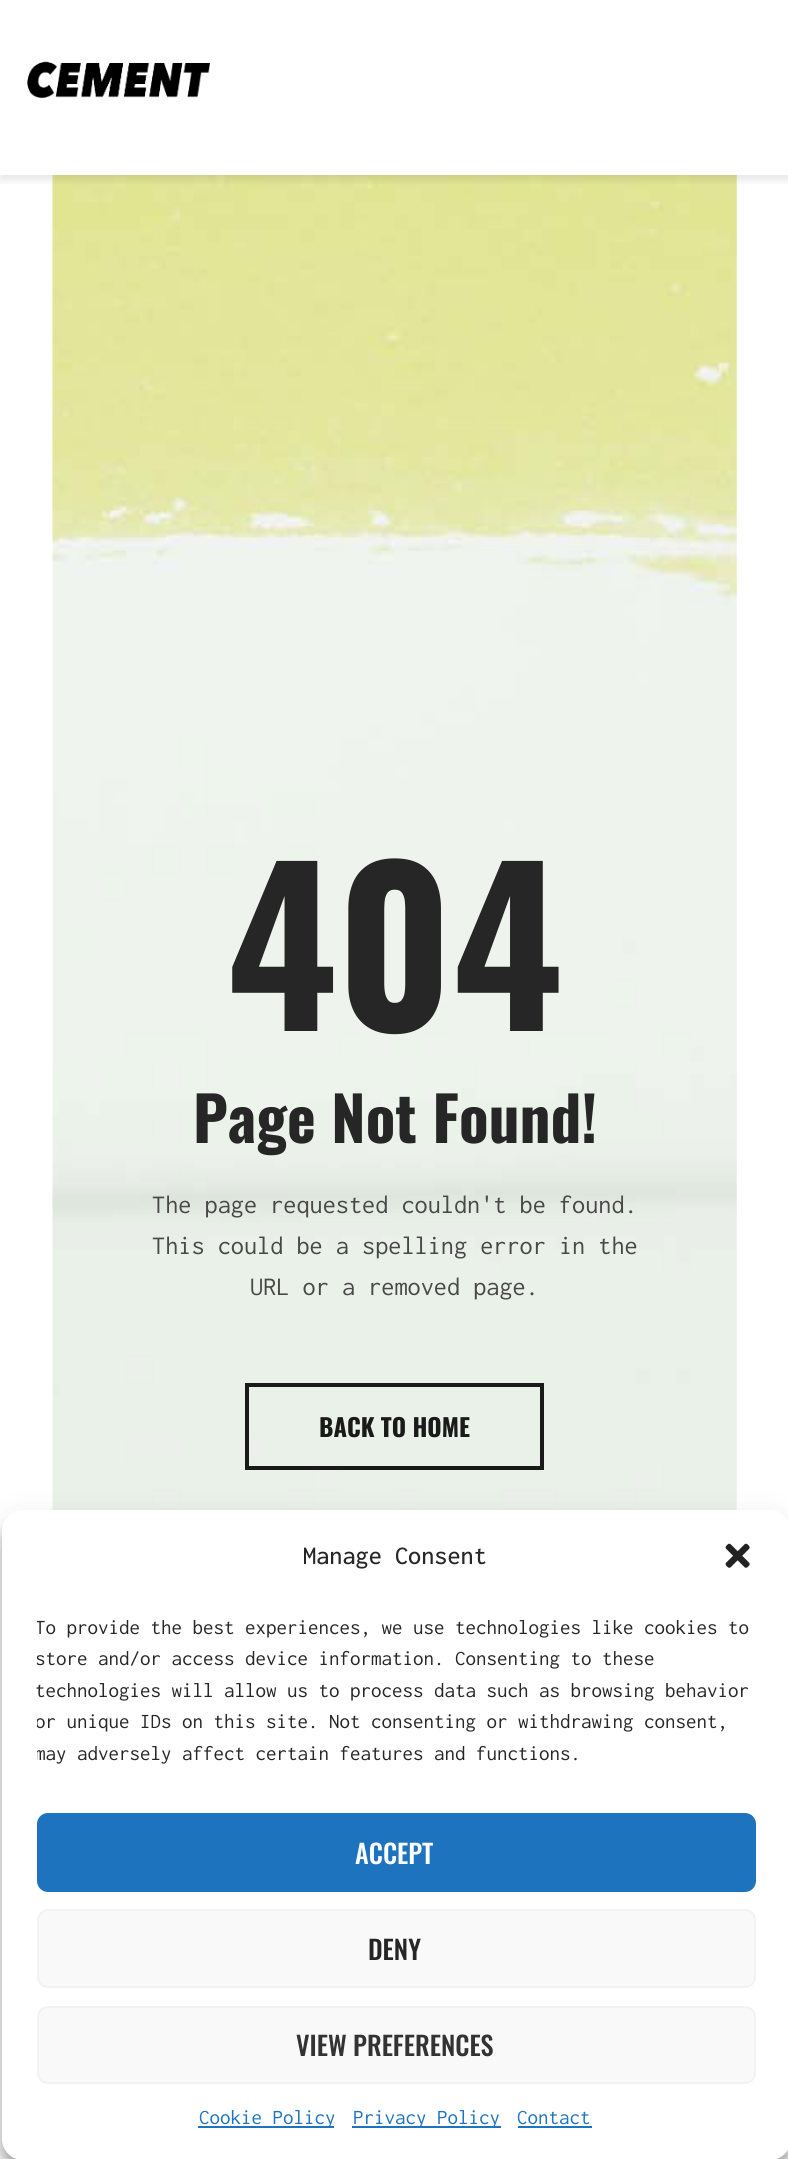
#include <cairo/cairo.h>
#include <math.h>
#include <stddef.h>


static void rounded_rect(cairo_t *cr, double x, double y, double w, double h, double r) {
  cairo_new_sub_path(cr);
  cairo_arc(cr, x + w - r, y + h - r, r, 0, M_PI / 2);
  cairo_arc(cr, x + r, y + h - r, r, M_PI / 2, M_PI);
  cairo_arc(cr, x + r, y + r, r, M_PI, 1.5 * M_PI);
  cairo_arc(cr, x + w - r, y + r, r, 1.5 * M_PI, 2 * M_PI);
  cairo_close_path(cr);
}

static void draw_shadow(cairo_t *cr, double x, double y, double w, double h, double r, double blur, double alpha) {
  cairo_push_group_with_content(cr, CAIRO_CONTENT_ALPHA);
  cairo_set_operator(cr, CAIRO_OPERATOR_SOURCE);
  for (int i = 15; i >= -15 && fmin(w, h) + blur * i / 3 > 0; i -= 2) {
    double e = blur * i / 6;
    cairo_set_source_rgba(cr, 0, 0, 0, alpha * erfc((i - 1) / 8.5) / 2);
    rounded_rect(cr, x - e, y - e, w + 2 * e, h + 2 * e, fmax(0, fmin(r + e + blur * .6, fmin(w, h) / 2 + e)));
    cairo_fill(cr);
  }
  cairo_pattern_t *soft = cairo_pop_group(cr);
  cairo_mask(cr, soft);
  cairo_pattern_destroy(soft);
}

static void draw_image(cairo_t *cr, const char *path, double x, double y, double w, double h) {
  cairo_surface_t *image = cairo_image_surface_create_from_png(path);
  cairo_save(cr);
  cairo_set_source_surface(cr, image, x, y);
  cairo_rectangle(cr, x, y, w, h);
  cairo_fill(cr);
  cairo_restore(cr);
  cairo_surface_destroy(image);
}

static void draw(cairo_t *cr) {
  cairo_set_source_rgb(cr, 1, 1, 1);
  cairo_paint(cr);
  draw_image(cr, "images/2.png", 52, 175, 685, 1335);
  cairo_save(cr);
  cairo_rectangle(cr, 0, 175, 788, 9);
  cairo_clip(cr);
  cairo_set_source_rgb(cr, 0, 0, 0);
  draw_shadow(cr, 0, 5, 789, 175, 0, 4.5, 0.1);
  cairo_restore(cr);
  draw_image(cr, "images/1.png", 27, 61, 183, 37);
  cairo_rectangle(cr, 247, 1385, 295, 83);
  cairo_set_source_rgb(cr, 27 / 255.0, 26 / 255.0, 26 / 255.0);
  cairo_set_line_width(cr, 4);
  cairo_stroke(cr);
  cairo_set_source_rgb(cr, 0, 0, 0);
  draw_shadow(cr, 2, 1521, 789, 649, 21, 5, 0.23);
  draw_shadow(cr, 2, 1528, 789, 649, 21, 17.5, 0.19);
  cairo_set_source_rgb(cr, 1, 1, 1);
  rounded_rect(cr, 2, 1510, 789, 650, 21);
  cairo_fill(cr);
  draw_image(cr, "images/3.png", 725, 1543, 25, 25);
  cairo_set_source_rgb(cr, 30 / 255.0, 115 / 255.0, 190 / 255.0);
  rounded_rect(cr, 38, 1814, 717, 77, 10);
  cairo_fill_preserve(cr);
  cairo_set_line_width(cr, 2);
  cairo_stroke(cr);
  cairo_set_source_rgb(cr, 249 / 255.0, 249 / 255.0, 249 / 255.0);
  rounded_rect(cr, 38, 1910, 717, 77, 10);
  cairo_fill_preserve(cr);
  cairo_set_source_rgb(cr, 242 / 255.0, 242 / 255.0, 242 / 255.0);
  cairo_stroke(cr);
  cairo_set_source_rgb(cr, 249 / 255.0, 249 / 255.0, 249 / 255.0);
  rounded_rect(cr, 38, 2007, 717, 76, 10);
  cairo_fill_preserve(cr);
  cairo_set_source_rgb(cr, 242 / 255.0, 242 / 255.0, 242 / 255.0);
  cairo_stroke(cr);
  cairo_set_source_rgb(cr, 30 / 255.0, 115 / 255.0, 190 / 255.0);
  cairo_rectangle(cr, 198, 2126, 136, 2);
  cairo_fill(cr);
  cairo_rectangle(cr, 352, 2126, 149, 2);
  cairo_fill(cr);
  cairo_rectangle(cr, 518, 2126, 74, 2);
  cairo_fill(cr);
  cairo_select_font_face(cr, "Oswald", CAIRO_FONT_SLANT_NORMAL, CAIRO_FONT_WEIGHT_BOLD);
  cairo_set_font_size(cr, 210);
  cairo_set_source_rgb(cr, 39 / 255.0, 38 / 255.0, 38 / 255.0);
  cairo_move_to(cr, 227, 1031);
  cairo_show_text(cr, "404");
  cairo_set_font_size(cr, 61.25);
  cairo_move_to(cr, 193, 1143);
  cairo_show_text(cr, "Page Not Found!");
  cairo_select_font_face(cr, "Inconsolata", CAIRO_FONT_SLANT_NORMAL, CAIRO_FONT_WEIGHT_NORMAL);
  cairo_set_font_size(cr, 26.25);
  cairo_set_source_rgb(cr, 73 / 255.0, 72 / 255.0, 72 / 255.0);
  cairo_move_to(cr, 152, 1213);
  cairo_show_text(cr, "The page requested couldn't be found.");
  cairo_move_to(cr, 152, 1254);
  cairo_show_text(cr, "This could be a spelling error in the");
  cairo_move_to(cr, 250, 1295);
  cairo_show_text(cr, "URL or a removed page.");
  cairo_select_font_face(cr, "Oswald", CAIRO_FONT_SLANT_NORMAL, CAIRO_FONT_WEIGHT_BOLD);
  cairo_set_font_size(cr, 24.5);
  cairo_set_source_rgb(cr, 27 / 255.0, 26 / 255.0, 26 / 255.0);
  cairo_move_to(cr, 319, 1437);
  cairo_show_text(cr, "BACK TO HOME");
  cairo_select_font_face(cr, "Inconsolata Medium", CAIRO_FONT_SLANT_NORMAL, CAIRO_FONT_WEIGHT_NORMAL);
  cairo_set_font_size(cr, 26.25);
  cairo_set_source_rgb(cr, 39 / 255.0, 38 / 255.0, 38 / 255.0);
  cairo_move_to(cr, 303, 1564);
  cairo_show_text(cr, "Manage Consent");
  cairo_save(cr);
  cairo_rectangle(cr, 37, 1612, 719, 166);
  cairo_clip(cr);
  cairo_select_font_face(cr, "Inconsolata", CAIRO_FONT_SLANT_NORMAL, CAIRO_FONT_WEIGHT_NORMAL);
  cairo_set_font_size(cr, 21);
  cairo_move_to(cr, 35, 1634);
  cairo_show_text(cr, "To provide the best experiences, we use technologies like cookies to");
  cairo_move_to(cr, 35, 1665);
  cairo_show_text(cr, "store and/or access device information. Consenting to these");
  cairo_restore(cr);
  cairo_select_font_face(cr, "Inconsolata", CAIRO_FONT_SLANT_NORMAL, CAIRO_FONT_WEIGHT_NORMAL);
  cairo_set_font_size(cr, 21);
  cairo_move_to(cr, 35, 1697);
  cairo_show_text(cr, "technologies will allow us to process data such as browsing behavior");
  cairo_save(cr);
  cairo_rectangle(cr, 37, 1612, 719, 166);
  cairo_clip(cr);
  cairo_move_to(cr, 35, 1728);
  cairo_show_text(cr, "or unique IDs on this site. Not consenting or withdrawing consent,");
  cairo_move_to(cr, 35, 1760);
  cairo_show_text(cr, "may adversely affect certain features and functions.");
  cairo_restore(cr);
  cairo_select_font_face(cr, "Oswald Medium", CAIRO_FONT_SLANT_NORMAL, CAIRO_FONT_WEIGHT_NORMAL);
  cairo_set_font_size(cr, 26.25);
  cairo_set_source_rgb(cr, 1, 1, 1);
  cairo_move_to(cr, 355, 1864);
  cairo_show_text(cr, "ACCEPT");
  cairo_set_source_rgb(cr, 39 / 255.0, 38 / 255.0, 38 / 255.0);
  cairo_move_to(cr, 368, 1960);
  cairo_show_text(cr, "DENY");
  cairo_set_source_rgb(cr, 51 / 255.0, 51 / 255.0, 51 / 255.0);
  cairo_move_to(cr, 296, 2056);
  cairo_show_text(cr, "VIEW PREFERENCES");
  cairo_select_font_face(cr, "Inconsolata", CAIRO_FONT_SLANT_NORMAL, CAIRO_FONT_WEIGHT_NORMAL);
  cairo_set_font_size(cr, 21);
  cairo_set_source_rgb(cr, 30 / 255.0, 115 / 255.0, 190 / 255.0);
  cairo_move_to(cr, 199, 2124);
  cairo_show_text(cr, "Cookie Policy");
  cairo_move_to(cr, 353, 2124);
  cairo_show_text(cr, "Privacy Policy");
  cairo_move_to(cr, 517, 2124);
  cairo_show_text(cr, "Contact");
}

int main(void) {
  cairo_surface_t *surface = cairo_image_surface_create(CAIRO_FORMAT_RGB24, 788, 2159);
  cairo_t *cr = cairo_create(surface);
  cairo_font_options_t *options = cairo_font_options_create();
  cairo_font_options_set_hint_metrics(options, CAIRO_HINT_METRICS_OFF);
  cairo_font_options_set_hint_style(options, CAIRO_HINT_STYLE_NONE);
  cairo_set_font_options(cr, options);
  cairo_set_miter_limit(cr, 4);
  draw(cr);
  cairo_surface_write_to_png(surface, "out.png");
  cairo_font_options_destroy(options);
  cairo_destroy(cr);
  cairo_surface_destroy(surface);
  return 0;
}
